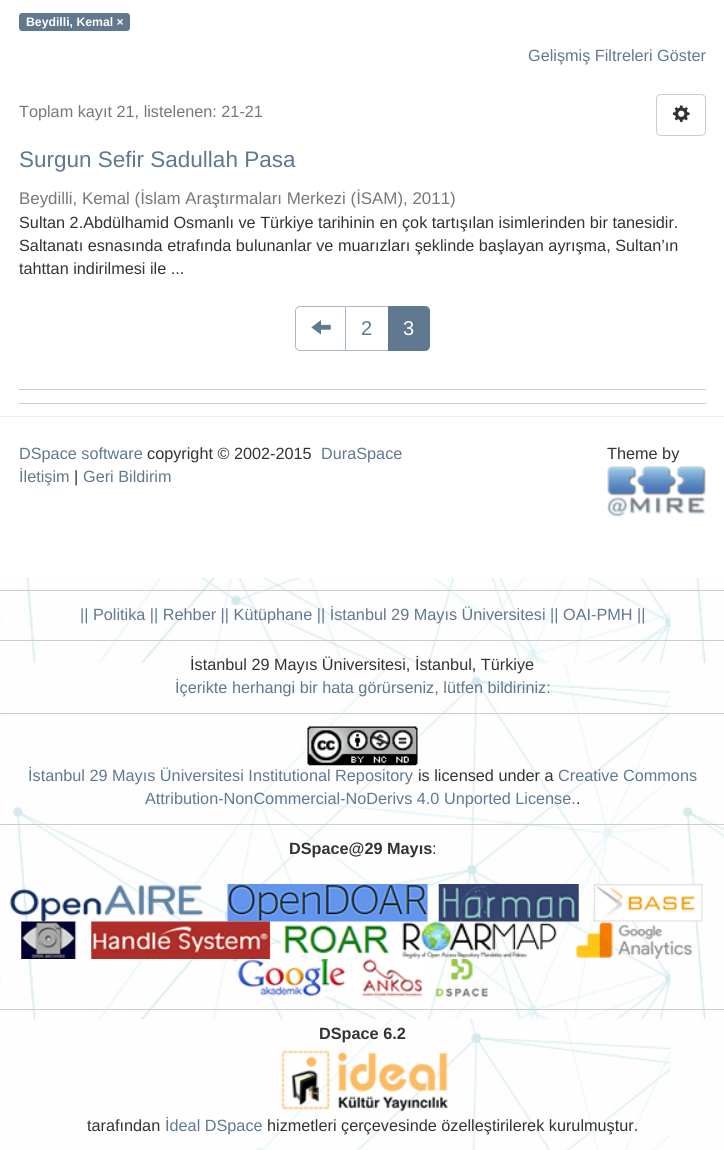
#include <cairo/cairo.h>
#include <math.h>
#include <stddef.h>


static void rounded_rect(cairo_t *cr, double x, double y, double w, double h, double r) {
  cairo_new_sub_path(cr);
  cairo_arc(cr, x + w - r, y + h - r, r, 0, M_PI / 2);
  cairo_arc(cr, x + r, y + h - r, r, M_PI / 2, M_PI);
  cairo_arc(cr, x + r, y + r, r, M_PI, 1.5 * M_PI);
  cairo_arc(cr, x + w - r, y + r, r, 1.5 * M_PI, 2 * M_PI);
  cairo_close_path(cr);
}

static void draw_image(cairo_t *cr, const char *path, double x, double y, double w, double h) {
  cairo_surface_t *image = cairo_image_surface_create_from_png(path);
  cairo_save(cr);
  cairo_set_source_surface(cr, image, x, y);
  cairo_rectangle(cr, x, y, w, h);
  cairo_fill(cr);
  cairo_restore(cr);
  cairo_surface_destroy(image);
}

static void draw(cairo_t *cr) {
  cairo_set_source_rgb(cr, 1, 1, 1);
  cairo_paint(cr);
  draw_image(cr, "images/1.png", 0, 578, 724, 572);
  cairo_set_source_rgb(cr, 96 / 255.0, 120 / 255.0, 144 / 255.0);
  rounded_rect(cr, 19, 13, 111, 18, 3);
  cairo_fill(cr);
  rounded_rect(cr, 656.5, 94.5, 49, 41, 4.5);
  cairo_set_source_rgb(cr, 204 / 255.0, 204 / 255.0, 204 / 255.0);
  cairo_set_line_width(cr, 1);
  cairo_stroke(cr);
  draw_image(cr, "images/2.png", 672, 105, 18, 18);
  cairo_new_path(cr);
  cairo_move_to(cr, 300, 306.5);
  cairo_line_to(cr, 345.5, 306.5);
  cairo_line_to(cr, 345.5, 350.5);
  cairo_line_to(cr, 300, 350.5);
  cairo_curve_to(cr, 297.5, 350.5, 295.5, 348.5, 295.5, 346);
  cairo_line_to(cr, 295.5, 311);
  cairo_curve_to(cr, 295.5, 308.5, 297.5, 306.5, 300, 306.5);
  cairo_close_path(cr);
  cairo_set_source_rgb(cr, 170 / 255.0, 184 / 255.0, 198 / 255.0);
  cairo_stroke(cr);
  draw_image(cr, "images/3.png", 311, 320, 20, 15);
  cairo_rectangle(cr, 345.5, 306.5, 43, 44);
  cairo_stroke(cr);
  cairo_set_source_rgb(cr, 96 / 255.0, 120 / 255.0, 144 / 255.0);
  cairo_new_path(cr);
  cairo_move_to(cr, 388.5, 306.5);
  cairo_line_to(cr, 425, 306.5);
  cairo_curve_to(cr, 427.5, 306.5, 429.5, 308.5, 429.5, 311);
  cairo_line_to(cr, 429.5, 346);
  cairo_curve_to(cr, 429.5, 348.5, 427.5, 350.5, 425, 350.5);
  cairo_line_to(cr, 388.5, 350.5);
  cairo_close_path(cr);
  cairo_fill_preserve(cr);
  cairo_stroke(cr);
  cairo_set_source_rgb(cr, 204 / 255.0, 204 / 255.0, 204 / 255.0);
  cairo_rectangle(cr, 19, 389, 687, 1);
  cairo_fill(cr);
  cairo_rectangle(cr, 19, 403, 687, 1);
  cairo_fill(cr);
  cairo_set_source_rgb(cr, 238 / 255.0, 238 / 255.0, 238 / 255.0);
  cairo_rectangle(cr, 0, 416, 724, 1);
  cairo_fill(cr);
  draw_image(cr, "images/4.png", 607, 466, 99, 52);
  cairo_set_source_rgb(cr, 204 / 255.0, 204 / 255.0, 204 / 255.0);
  cairo_rectangle(cr, 0, 590, 724, 1);
  cairo_fill(cr);
  cairo_rectangle(cr, 0, 640, 724, 1);
  cairo_fill(cr);
  cairo_rectangle(cr, 0, 713, 724, 1);
  cairo_fill(cr);
  draw_image(cr, "images/5.png", 307, 726, 111, 40);
  cairo_rectangle(cr, 0, 824, 724, 1);
  cairo_fill(cr);
  draw_image(cr, "images/6.png", 9, 885, 194, 37);
  draw_image(cr, "images/7.png", 227, 884, 201, 38);
  draw_image(cr, "images/8.png", 438, 884, 141, 38);
  draw_image(cr, "images/9.png", 593, 884, 110, 38);
  draw_image(cr, "images/10.png", 21, 921, 56, 38);
  draw_image(cr, "images/11.png", 91, 921, 180, 38);
  draw_image(cr, "images/12.png", 281, 922, 108, 34);
  draw_image(cr, "images/13.png", 402, 921, 155, 38);
  draw_image(cr, "images/14.png", 576, 921, 117, 38);
  draw_image(cr, "images/15.png", 237, 959, 122, 38);
  draw_image(cr, "images/16.png", 359, 959, 64, 38);
  draw_image(cr, "images/17.png", 436, 959, 52, 38);
  cairo_rectangle(cr, 0, 1009, 724, 1);
  cairo_fill(cr);
  draw_image(cr, "images/18.png", 281, 1050, 167, 62);
  cairo_select_font_face(cr, "Liberation Sans", CAIRO_FONT_SLANT_NORMAL, CAIRO_FONT_WEIGHT_BOLD);
  cairo_set_font_size(cr, 12.25);
  cairo_set_source_rgb(cr, 1, 1, 1);
  cairo_move_to(cr, 26, 26);
  cairo_show_text(cr, "Beydilli, Kemal ×");
  cairo_select_font_face(cr, "Liberation Sans", CAIRO_FONT_SLANT_NORMAL, CAIRO_FONT_WEIGHT_NORMAL);
  cairo_set_font_size(cr, 16.25);
  cairo_set_source_rgb(cr, 96 / 255.0, 120 / 255.0, 144 / 255.0);
  cairo_move_to(cr, 528, 61);
  cairo_show_text(cr, "Gelişmiş Filtreleri Göster");
  cairo_set_source_rgb(cr, 119 / 255.0, 119 / 255.0, 119 / 255.0);
  cairo_move_to(cr, 19, 117);
  cairo_show_text(cr, "Toplam kayıt 21, listelenen: 21-21");
  cairo_set_font_size(cr, 22.5);
  cairo_set_source_rgb(cr, 96 / 255.0, 120 / 255.0, 144 / 255.0);
  cairo_move_to(cr, 19, 167);
  cairo_show_text(cr, "Surgun Sefir Sadullah Pasa");
  cairo_set_font_size(cr, 16.9);
  cairo_set_source_rgb(cr, 119 / 255.0, 119 / 255.0, 119 / 255.0);
  cairo_move_to(cr, 19, 204);
  cairo_show_text(cr, "Beydilli, Kemal (İslam Araştırmaları Merkezi (İSAM), 2011)");
  cairo_set_font_size(cr, 16.25);
  cairo_set_source_rgb(cr, 51 / 255.0, 51 / 255.0, 51 / 255.0);
  cairo_move_to(cr, 19, 228);
  cairo_show_text(cr, "Sultan 2.Abdülhamid Osmanlı ve Türkiye tarihinin en çok tartışılan isimlerinden bir tanesidir.");
  cairo_move_to(cr, 19, 251);
  cairo_show_text(cr, "Saltanatı esnasında etrafında bulunanlar ve muarızları şeklinde başlayan ayrışma, Sultan’ın");
  cairo_move_to(cr, 19, 274);
  cairo_show_text(cr, "tahttan indirilmesi ile ...");
  cairo_set_font_size(cr, 20);
  cairo_set_source_rgb(cr, 96 / 255.0, 120 / 255.0, 144 / 255.0);
  cairo_move_to(cr, 361, 335);
  cairo_show_text(cr, "2");
  cairo_set_source_rgb(cr, 1, 1, 1);
  cairo_move_to(cr, 403, 335);
  cairo_show_text(cr, "3");
  cairo_set_font_size(cr, 16.25);
  cairo_set_source_rgb(cr, 96 / 255.0, 120 / 255.0, 144 / 255.0);
  cairo_move_to(cr, 19, 459);
  cairo_show_text(cr, "DSpace software");
  cairo_set_source_rgb(cr, 51 / 255.0, 51 / 255.0, 51 / 255.0);
  cairo_move_to(cr, 147, 459);
  cairo_show_text(cr, "copyright © 2002-2015");
  cairo_set_source_rgb(cr, 96 / 255.0, 120 / 255.0, 144 / 255.0);
  cairo_move_to(cr, 321, 459);
  cairo_show_text(cr, "DuraSpace");
  cairo_move_to(cr, 19, 482);
  cairo_show_text(cr, "İletişim");
  cairo_set_source_rgb(cr, 51 / 255.0, 51 / 255.0, 51 / 255.0);
  cairo_move_to(cr, 74, 482);
  cairo_show_text(cr, "|");
  cairo_set_source_rgb(cr, 96 / 255.0, 120 / 255.0, 144 / 255.0);
  cairo_move_to(cr, 83, 482);
  cairo_show_text(cr, "Geri Bildirim");
  cairo_set_source_rgb(cr, 51 / 255.0, 51 / 255.0, 51 / 255.0);
  cairo_move_to(cr, 607, 459);
  cairo_show_text(cr, "Theme by");
  cairo_set_source_rgb(cr, 96 / 255.0, 120 / 255.0, 144 / 255.0);
  cairo_move_to(cr, 80, 620);
  cairo_show_text(cr, "|| Politika || Rehber || Kütüphane || İstanbul 29 Mayıs Üniversitesi || OAI-PMH ||");
  cairo_set_source_rgb(cr, 51 / 255.0, 51 / 255.0, 51 / 255.0);
  cairo_move_to(cr, 190, 670);
  cairo_show_text(cr, "İstanbul 29 Mayıs Üniversitesi, İstanbul, Türkiye");
  cairo_set_source_rgb(cr, 96 / 255.0, 120 / 255.0, 144 / 255.0);
  cairo_move_to(cr, 175, 693);
  cairo_show_text(cr, "İçerikte herhangi bir hata görürseniz, lütfen bildiriniz:");
  cairo_move_to(cr, 28, 781);
  cairo_show_text(cr, "İstanbul 29 Mayıs Üniversitesi Institutional Repository");
  cairo_set_source_rgb(cr, 51 / 255.0, 51 / 255.0, 51 / 255.0);
  cairo_move_to(cr, 418, 781);
  cairo_show_text(cr, "is licensed under a");
  cairo_set_source_rgb(cr, 96 / 255.0, 120 / 255.0, 144 / 255.0);
  cairo_move_to(cr, 558, 781);
  cairo_show_text(cr, "Creative Commons");
  cairo_move_to(cr, 145, 804);
  cairo_show_text(cr, "Attribution-NonCommercial-NoDerivs 4.0 Unported License.");
  cairo_set_source_rgb(cr, 51 / 255.0, 51 / 255.0, 51 / 255.0);
  cairo_move_to(cr, 576, 804);
  cairo_show_text(cr, ".");
  cairo_select_font_face(cr, "Liberation Sans", CAIRO_FONT_SLANT_NORMAL, CAIRO_FONT_WEIGHT_BOLD);
  cairo_move_to(cr, 289, 854);
  cairo_show_text(cr, "DSpace@29 Mayıs");
  cairo_select_font_face(cr, "Liberation Sans", CAIRO_FONT_SLANT_NORMAL, CAIRO_FONT_WEIGHT_NORMAL);
  cairo_move_to(cr, 432, 854);
  cairo_show_text(cr, ":");
  cairo_select_font_face(cr, "Liberation Sans", CAIRO_FONT_SLANT_NORMAL, CAIRO_FONT_WEIGHT_BOLD);
  cairo_move_to(cr, 319, 1039);
  cairo_show_text(cr, "DSpace 6.2");
  cairo_select_font_face(cr, "Liberation Sans", CAIRO_FONT_SLANT_NORMAL, CAIRO_FONT_WEIGHT_NORMAL);
  cairo_move_to(cr, 87, 1131);
  cairo_show_text(cr, "tarafından");
  cairo_set_source_rgb(cr, 96 / 255.0, 120 / 255.0, 144 / 255.0);
  cairo_move_to(cr, 165, 1131);
  cairo_show_text(cr, "İdeal DSpace");
  cairo_set_source_rgb(cr, 51 / 255.0, 51 / 255.0, 51 / 255.0);
  cairo_move_to(cr, 267, 1131);
  cairo_show_text(cr, "hizmetleri çerçevesinde özelleştirilerek kurulmuştur.");
}

int main(void) {
  cairo_surface_t *surface = cairo_image_surface_create(CAIRO_FORMAT_RGB24, 724, 1150);
  cairo_t *cr = cairo_create(surface);
  cairo_font_options_t *options = cairo_font_options_create();
  cairo_font_options_set_hint_metrics(options, CAIRO_HINT_METRICS_OFF);
  cairo_font_options_set_hint_style(options, CAIRO_HINT_STYLE_NONE);
  cairo_set_font_options(cr, options);
  cairo_set_miter_limit(cr, 4);
  draw(cr);
  cairo_surface_write_to_png(surface, "out.png");
  cairo_font_options_destroy(options);
  cairo_destroy(cr);
  cairo_surface_destroy(surface);
  return 0;
}
